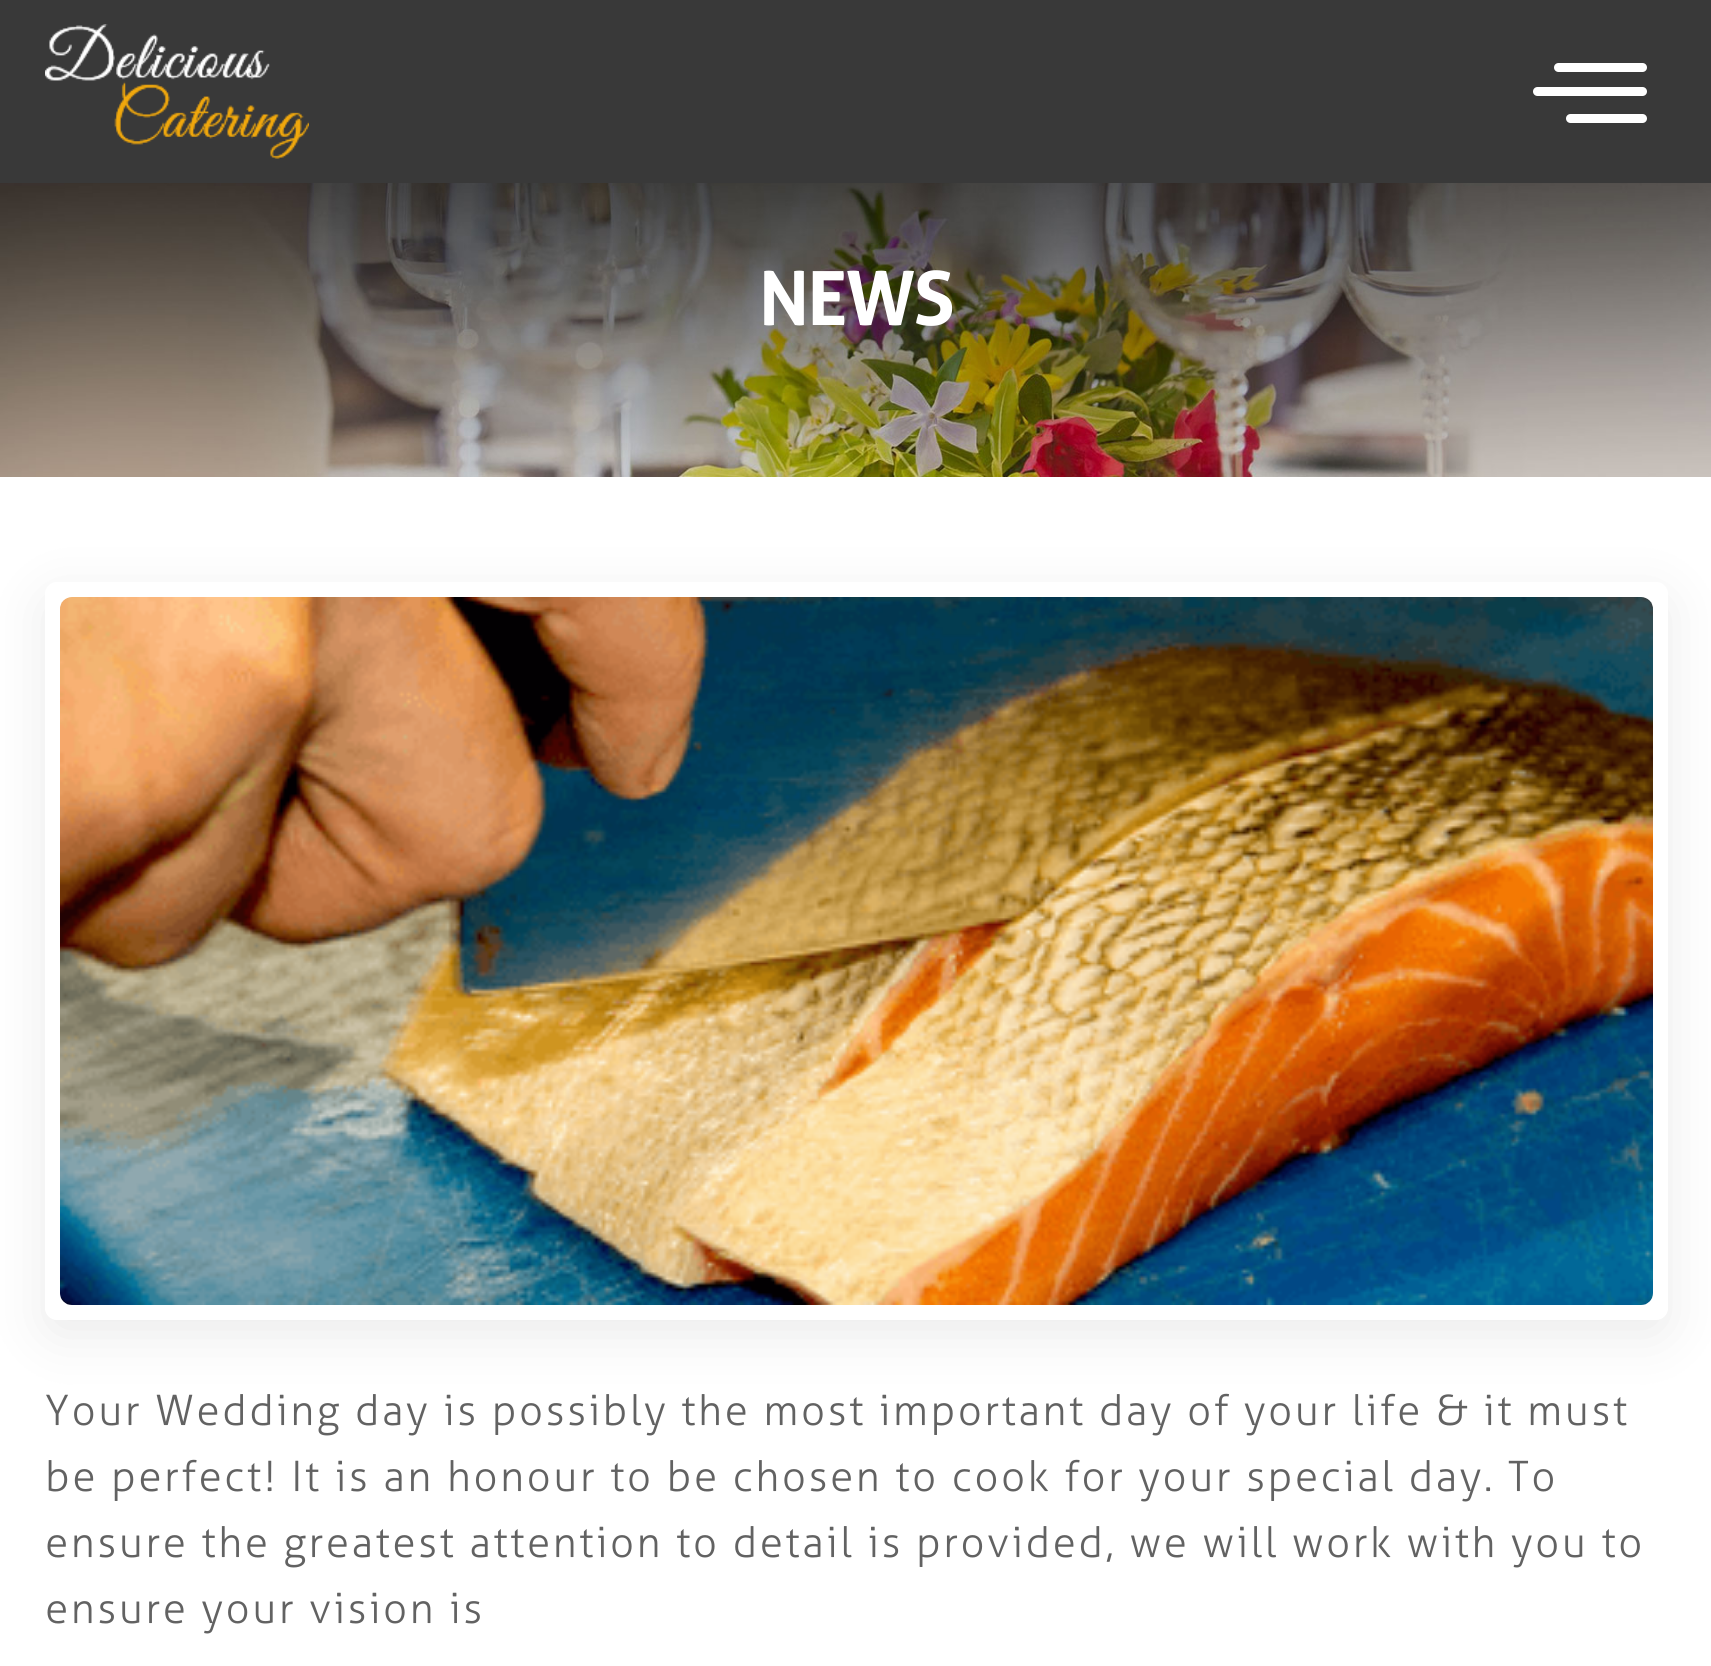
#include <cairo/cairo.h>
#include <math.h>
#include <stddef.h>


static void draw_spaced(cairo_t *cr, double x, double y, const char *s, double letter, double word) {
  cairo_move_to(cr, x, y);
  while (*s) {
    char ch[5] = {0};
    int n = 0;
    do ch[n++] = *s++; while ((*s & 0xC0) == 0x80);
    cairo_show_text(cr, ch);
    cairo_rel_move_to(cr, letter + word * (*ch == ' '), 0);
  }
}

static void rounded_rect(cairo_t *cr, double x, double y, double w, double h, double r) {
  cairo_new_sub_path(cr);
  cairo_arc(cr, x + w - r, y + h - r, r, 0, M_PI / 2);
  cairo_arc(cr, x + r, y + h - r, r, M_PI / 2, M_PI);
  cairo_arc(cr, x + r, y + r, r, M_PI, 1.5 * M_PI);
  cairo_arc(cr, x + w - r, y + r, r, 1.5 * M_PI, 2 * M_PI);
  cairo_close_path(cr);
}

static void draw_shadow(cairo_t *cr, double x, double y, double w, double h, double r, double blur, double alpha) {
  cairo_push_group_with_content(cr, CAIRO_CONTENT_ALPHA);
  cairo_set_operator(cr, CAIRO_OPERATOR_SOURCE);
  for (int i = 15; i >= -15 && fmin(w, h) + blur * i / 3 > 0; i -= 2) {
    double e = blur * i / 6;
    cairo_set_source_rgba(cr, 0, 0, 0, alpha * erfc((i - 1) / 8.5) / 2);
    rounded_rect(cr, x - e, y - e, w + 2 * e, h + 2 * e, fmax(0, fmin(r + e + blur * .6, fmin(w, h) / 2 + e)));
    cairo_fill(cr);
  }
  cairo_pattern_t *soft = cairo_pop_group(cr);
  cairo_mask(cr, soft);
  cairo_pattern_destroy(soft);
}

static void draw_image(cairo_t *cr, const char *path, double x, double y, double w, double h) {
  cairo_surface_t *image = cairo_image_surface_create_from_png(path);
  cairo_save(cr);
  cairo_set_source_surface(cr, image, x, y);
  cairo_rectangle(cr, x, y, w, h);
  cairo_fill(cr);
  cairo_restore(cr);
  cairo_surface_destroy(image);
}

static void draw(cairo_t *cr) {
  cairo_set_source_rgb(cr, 1, 1, 1);
  cairo_paint(cr);
  cairo_set_source_rgb(cr, 57 / 255.0, 57 / 255.0, 57 / 255.0);
  cairo_rectangle(cr, 0, 0, 1711, 183);
  cairo_fill(cr);
  draw_image(cr, "images/1.png", 45, 24, 264, 135);
  cairo_set_source_rgb(cr, 1, 1, 1);
  rounded_rect(cr, 1554, 63, 93, 9, 4.5);
  cairo_fill(cr);
  rounded_rect(cr, 1533, 87, 114, 9, 4.5);
  cairo_fill(cr);
  rounded_rect(cr, 1566, 114, 81, 9, 4.5);
  cairo_fill(cr);
  draw_image(cr, "images/2.png", 0, 183, 1711, 294);
  cairo_save(cr);
  cairo_set_fill_rule(cr, CAIRO_FILL_RULE_EVEN_ODD);
  cairo_new_path(cr);
  cairo_move_to(cr, 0, 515);
  cairo_line_to(cr, 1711, 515);
  cairo_line_to(cr, 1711, 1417);
  cairo_line_to(cr, 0, 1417);
  cairo_close_path(cr);
  cairo_move_to(cr, 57, 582);
  cairo_line_to(cr, 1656, 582);
  cairo_curve_to(cr, 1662.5, 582, 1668, 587.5, 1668, 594);
  cairo_line_to(cr, 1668, 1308);
  cairo_curve_to(cr, 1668, 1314.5, 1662.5, 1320, 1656, 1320);
  cairo_line_to(cr, 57, 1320);
  cairo_curve_to(cr, 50.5, 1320, 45, 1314.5, 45, 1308);
  cairo_line_to(cr, 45, 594);
  cairo_curve_to(cr, 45, 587.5, 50.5, 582, 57, 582);
  cairo_close_path(cr);
  cairo_clip(cr);
  cairo_set_source_rgb(cr, 155 / 255.0, 152 / 255.0, 152 / 255.0);
  draw_shadow(cr, 45, 597, 1623, 738, 12, 27, 0.2);
  cairo_restore(cr);
  draw_image(cr, "images/3.png", 60, 597, 1593, 708);
  draw_image(cr, "images/4.png", 46, 1393, 1581, 43);
  draw_image(cr, "images/5.png", 48, 1459, 1505, 43);
  draw_image(cr, "images/6.png", 47, 1526, 1593, 42);
  draw_image(cr, "images/7.png", 47, 1592, 433, 42);
  cairo_select_font_face(cr, "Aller", CAIRO_FONT_SLANT_NORMAL, CAIRO_FONT_WEIGHT_BOLD);
  cairo_set_font_size(cr, 75);
  draw_spaced(cr, 759, 325, "NEWS", -1.5, 0);
}

int main(void) {
  cairo_surface_t *surface = cairo_image_surface_create(CAIRO_FORMAT_RGB24, 1711, 1666);
  cairo_t *cr = cairo_create(surface);
  cairo_font_options_t *options = cairo_font_options_create();
  cairo_font_options_set_hint_metrics(options, CAIRO_HINT_METRICS_OFF);
  cairo_font_options_set_hint_style(options, CAIRO_HINT_STYLE_NONE);
  cairo_set_font_options(cr, options);
  cairo_set_miter_limit(cr, 4);
  draw(cr);
  cairo_surface_write_to_png(surface, "out.png");
  cairo_font_options_destroy(options);
  cairo_destroy(cr);
  cairo_surface_destroy(surface);
  return 0;
}
